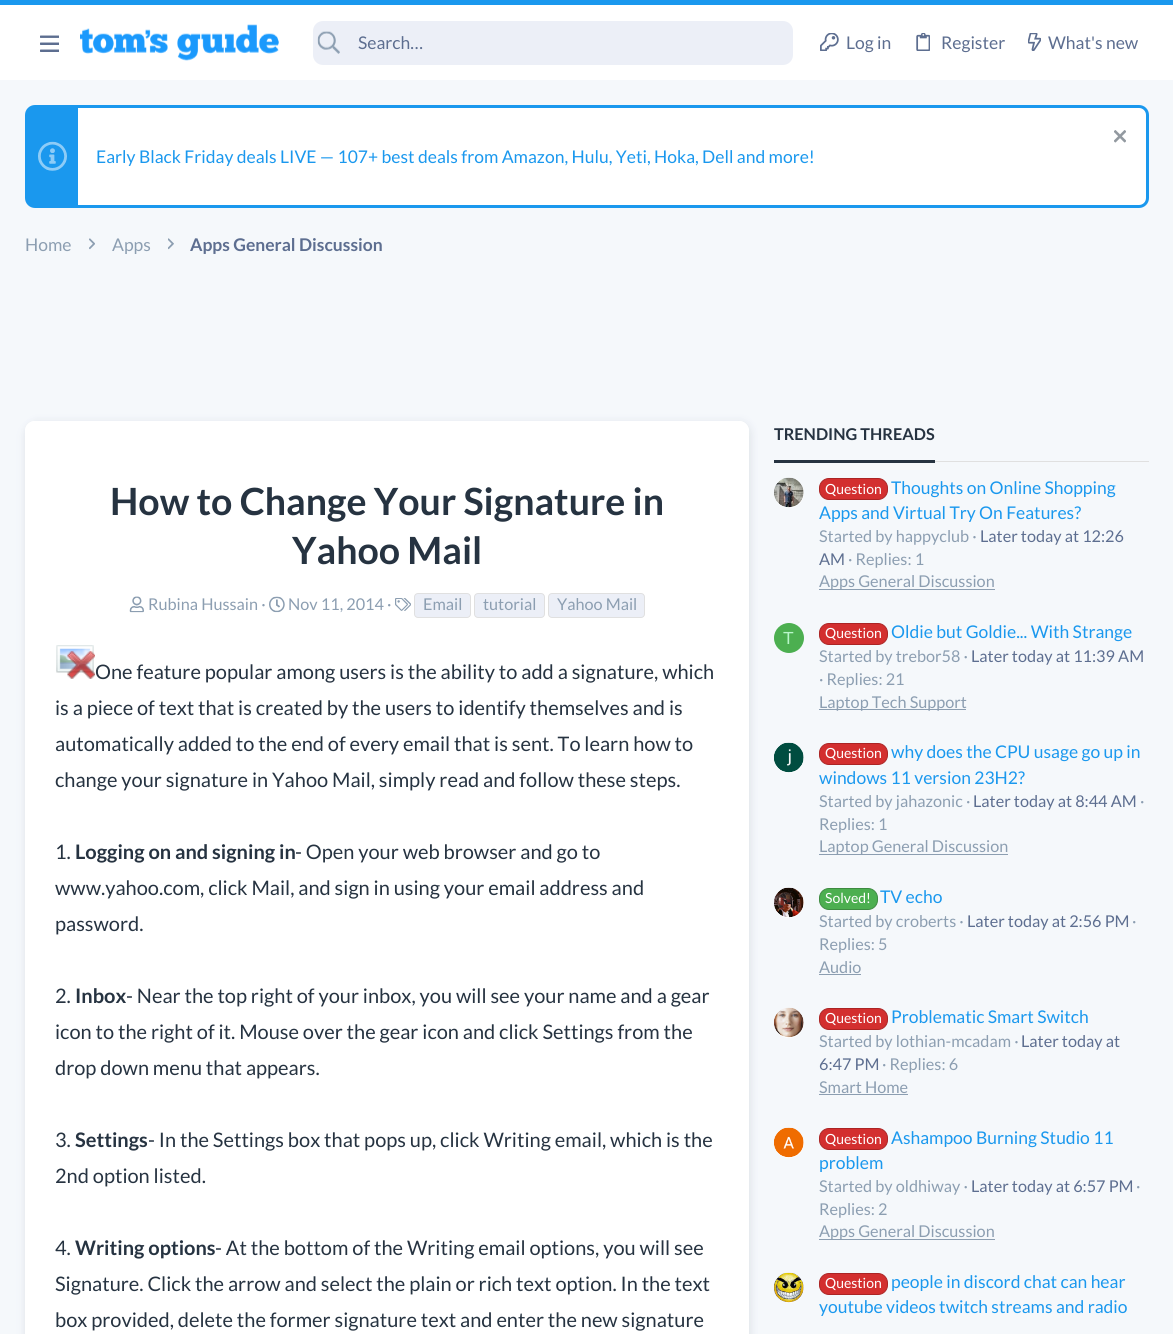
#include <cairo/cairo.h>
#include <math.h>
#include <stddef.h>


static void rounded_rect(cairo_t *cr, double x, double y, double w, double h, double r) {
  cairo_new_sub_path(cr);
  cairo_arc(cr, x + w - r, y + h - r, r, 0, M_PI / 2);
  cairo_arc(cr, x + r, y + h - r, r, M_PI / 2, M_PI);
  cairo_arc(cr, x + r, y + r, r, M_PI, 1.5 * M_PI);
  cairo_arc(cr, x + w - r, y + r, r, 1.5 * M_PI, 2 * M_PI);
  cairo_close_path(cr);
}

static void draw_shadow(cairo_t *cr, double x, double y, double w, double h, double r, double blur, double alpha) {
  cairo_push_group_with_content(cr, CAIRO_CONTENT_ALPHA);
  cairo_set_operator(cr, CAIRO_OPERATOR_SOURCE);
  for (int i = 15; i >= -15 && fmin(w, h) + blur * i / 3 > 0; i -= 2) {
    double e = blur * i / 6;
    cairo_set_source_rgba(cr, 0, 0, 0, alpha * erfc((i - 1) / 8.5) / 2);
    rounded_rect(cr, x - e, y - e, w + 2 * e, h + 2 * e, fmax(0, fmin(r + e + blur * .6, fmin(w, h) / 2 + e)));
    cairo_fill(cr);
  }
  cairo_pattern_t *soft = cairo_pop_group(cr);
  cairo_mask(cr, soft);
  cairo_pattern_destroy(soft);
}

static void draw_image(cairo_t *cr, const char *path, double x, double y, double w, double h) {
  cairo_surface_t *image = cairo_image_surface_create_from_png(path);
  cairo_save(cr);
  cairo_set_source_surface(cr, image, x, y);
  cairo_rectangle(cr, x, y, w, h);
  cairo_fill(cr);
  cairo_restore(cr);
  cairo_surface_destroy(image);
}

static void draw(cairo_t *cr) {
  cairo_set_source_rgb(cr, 245 / 255.0, 248 / 255.0, 251 / 255.0);
  cairo_paint(cr);
  cairo_set_source_rgb(cr, 1, 1, 1);
  cairo_rectangle(cr, 0, 5, 1173, 75);
  cairo_fill(cr);
  cairo_set_source_rgb(cr, 26 / 255.0, 152 / 255.0, 238 / 255.0);
  cairo_rectangle(cr, 0, 0, 1173, 5);
  cairo_fill(cr);
  draw_image(cr, "images/1.png", 40, 35, 19, 17);
  draw_image(cr, "images/2.png", 80, 24, 199, 37);
  cairo_set_source_rgb(cr, 236 / 255.0, 239 / 255.0, 247 / 255.0);
  rounded_rect(cr, 313, 21, 480, 44, 10);
  cairo_fill(cr);
  draw_image(cr, "images/3.png", 317, 31, 23, 23);
  draw_image(cr, "images/4.png", 820, 33, 19, 18);
  draw_image(cr, "images/5.png", 916, 33, 14, 18);
  draw_image(cr, "images/6.png", 1028, 33, 13, 18);
  cairo_set_source_rgb(cr, 1, 1, 1);
  rounded_rect(cr, 26.5, 106.5, 1121, 100, 8.5);
  cairo_fill_preserve(cr);
  cairo_set_source_rgb(cr, 26 / 255.0, 152 / 255.0, 238 / 255.0);
  cairo_set_line_width(cr, 3);
  cairo_stroke(cr);
  cairo_rectangle(cr, 28, 108, 50, 97);
  cairo_fill(cr);
  draw_image(cr, "images/7.png", 38, 141, 29, 30);
  draw_image(cr, "images/8.png", 1114, 130, 12, 13);
  draw_image(cr, "images/9.png", 89, 238, 6, 12);
  draw_image(cr, "images/10.png", 168, 238, 6, 12);
  cairo_set_source_rgb(cr, 103 / 255.0, 118 / 255.0, 133 / 255.0);
  draw_shadow(cr, 28, 421, 723, 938, 10, 5, 0.08);
  draw_shadow(cr, 25, 426, 724, 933, 10, 5, 0.12);
  cairo_set_source_rgb(cr, 1, 1, 1);
  rounded_rect(cr, 25, 421, 724, 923, 10);
  cairo_fill(cr);
  cairo_new_path(cr);
  cairo_move_to(cr, 35, 421);
  cairo_line_to(cr, 739, 421);
  cairo_curve_to(cr, 744.5, 421, 749, 425.5, 749, 431);
  cairo_line_to(cr, 749, 620);
  cairo_line_to(cr, 25, 620);
  cairo_line_to(cr, 25, 431);
  cairo_curve_to(cr, 25, 425.5, 29.5, 421, 35, 421);
  cairo_close_path(cr);
  cairo_fill(cr);
  draw_image(cr, "images/11.png", 129, 596, 15, 17);
  draw_image(cr, "images/12.png", 269, 596, 16, 17);
  draw_image(cr, "images/13.png", 395, 598, 16, 13);
  cairo_set_source_rgb(cr, 236 / 255.0, 239 / 255.0, 247 / 255.0);
  rounded_rect(cr, 414.5, 593.5, 56, 24, 3.5);
  cairo_fill_preserve(cr);
  cairo_set_source_rgb(cr, 224 / 255.0, 224 / 255.0, 224 / 255.0);
  cairo_set_line_width(cr, 1);
  cairo_stroke(cr);
  cairo_set_source_rgb(cr, 236 / 255.0, 239 / 255.0, 247 / 255.0);
  rounded_rect(cr, 474.5, 593.5, 70, 24, 3.5);
  cairo_fill_preserve(cr);
  cairo_set_source_rgb(cr, 224 / 255.0, 224 / 255.0, 224 / 255.0);
  cairo_stroke(cr);
  cairo_set_source_rgb(cr, 236 / 255.0, 239 / 255.0, 247 / 255.0);
  rounded_rect(cr, 548.5, 593.5, 96, 24, 3.5);
  cairo_fill_preserve(cr);
  cairo_set_source_rgb(cr, 224 / 255.0, 224 / 255.0, 224 / 255.0);
  cairo_stroke(cr);
  draw_image(cr, "images/14.png", 56, 645, 39, 34);
  cairo_set_source_rgb(cr, 38 / 255.0, 51 / 255.0, 65 / 255.0);
  cairo_rectangle(cr, 774, 460, 161, 3);
  cairo_fill(cr);
  cairo_set_source_rgb(cr, 224 / 255.0, 224 / 255.0, 224 / 255.0);
  cairo_rectangle(cr, 935, 461, 214, 1);
  cairo_fill(cr);
  cairo_set_source_rgb(cr, 1, 1, 1);
  cairo_arc(cr, 789, 493, 15, 0, 2 * M_PI);
  cairo_fill(cr);
  draw_image(cr, "images/15.png", 774, 477, 30, 31);
  cairo_set_source_rgb(cr, 211 / 255.0, 47 / 255.0, 47 / 255.0);
  rounded_rect(cr, 819.5, 478.5, 68, 21, 9.5);
  cairo_fill_preserve(cr);
  cairo_set_source_rgb(cr, 171 / 255.0, 36 / 255.0, 36 / 255.0);
  cairo_stroke(cr);
  cairo_set_source_rgb(cr, 140 / 255.0, 158 / 255.0, 177 / 255.0);
  cairo_rectangle(cr, 819, 589, 176, 1);
  cairo_fill(cr);
  cairo_set_source_rgb(cr, 76 / 255.0, 175 / 255.0, 80 / 255.0);
  cairo_arc(cr, 789, 638, 15, 0, 2 * M_PI);
  cairo_fill(cr);
  cairo_set_source_rgb(cr, 211 / 255.0, 47 / 255.0, 47 / 255.0);
  rounded_rect(cr, 819.5, 623.5, 68, 21, 9.5);
  cairo_fill_preserve(cr);
  cairo_set_source_rgb(cr, 171 / 255.0, 36 / 255.0, 36 / 255.0);
  cairo_stroke(cr);
  cairo_set_source_rgb(cr, 140 / 255.0, 158 / 255.0, 177 / 255.0);
  cairo_rectangle(cr, 819, 709, 147, 1);
  cairo_fill(cr);
  cairo_set_source_rgb(cr, 1, 1, 1);
  cairo_arc(cr, 789, 758, 15, 0, 2 * M_PI);
  cairo_fill(cr);
  draw_image(cr, "images/16.png", 774, 742, 30, 31);
  cairo_set_source_rgb(cr, 211 / 255.0, 47 / 255.0, 47 / 255.0);
  rounded_rect(cr, 819.5, 743.5, 68, 21, 9.5);
  cairo_fill_preserve(cr);
  cairo_set_source_rgb(cr, 171 / 255.0, 36 / 255.0, 36 / 255.0);
  cairo_stroke(cr);
  cairo_set_source_rgb(cr, 140 / 255.0, 158 / 255.0, 177 / 255.0);
  cairo_rectangle(cr, 819, 854, 189, 1);
  cairo_fill(cr);
  cairo_set_source_rgb(cr, 1, 1, 1);
  cairo_arc(cr, 789, 903, 15, 0, 2 * M_PI);
  cairo_fill(cr);
  draw_image(cr, "images/17.png", 774, 887, 30, 31);
  cairo_set_source_rgb(cr, 76 / 255.0, 175 / 255.0, 80 / 255.0);
  rounded_rect(cr, 819.5, 888.5, 58, 21, 9.5);
  cairo_fill_preserve(cr);
  cairo_set_source_rgb(cr, 61 / 255.0, 139 / 255.0, 64 / 255.0);
  cairo_stroke(cr);
  cairo_set_source_rgb(cr, 140 / 255.0, 158 / 255.0, 177 / 255.0);
  cairo_rectangle(cr, 819, 974, 42, 1);
  cairo_fill(cr);
  cairo_set_source_rgb(cr, 1, 1, 1);
  cairo_arc(cr, 789, 1023, 15, 0, 2 * M_PI);
  cairo_fill(cr);
  draw_image(cr, "images/18.png", 774, 1007, 30, 31);
  cairo_set_source_rgb(cr, 211 / 255.0, 47 / 255.0, 47 / 255.0);
  rounded_rect(cr, 819.5, 1008.5, 68, 21, 9.5);
  cairo_fill_preserve(cr);
  cairo_set_source_rgb(cr, 171 / 255.0, 36 / 255.0, 36 / 255.0);
  cairo_stroke(cr);
  cairo_set_source_rgb(cr, 140 / 255.0, 158 / 255.0, 177 / 255.0);
  cairo_rectangle(cr, 819, 1094, 89, 1);
  cairo_fill(cr);
  cairo_set_source_rgb(cr, 1, 1, 1);
  cairo_arc(cr, 789, 1143, 15, 0, 2 * M_PI);
  cairo_fill(cr);
  draw_image(cr, "images/19.png", 774, 1127, 30, 31);
  cairo_set_source_rgb(cr, 211 / 255.0, 47 / 255.0, 47 / 255.0);
  rounded_rect(cr, 819.5, 1128.5, 68, 21, 9.5);
  cairo_fill_preserve(cr);
  cairo_set_source_rgb(cr, 171 / 255.0, 36 / 255.0, 36 / 255.0);
  cairo_stroke(cr);
  cairo_set_source_rgb(cr, 140 / 255.0, 158 / 255.0, 177 / 255.0);
  cairo_rectangle(cr, 819, 1239, 176, 1);
  cairo_fill(cr);
  cairo_set_source_rgb(cr, 1, 1, 1);
  cairo_arc(cr, 789, 1288, 15, 0, 2 * M_PI);
  cairo_fill(cr);
  draw_image(cr, "images/20.png", 774, 1272, 30, 31);
  cairo_set_source_rgb(cr, 211 / 255.0, 47 / 255.0, 47 / 255.0);
  rounded_rect(cr, 819.5, 1273.5, 68, 21, 9.5);
  cairo_fill_preserve(cr);
  cairo_set_source_rgb(cr, 171 / 255.0, 36 / 255.0, 36 / 255.0);
  cairo_stroke(cr);
  cairo_select_font_face(cr, "Lato", CAIRO_FONT_SLANT_NORMAL, CAIRO_FONT_WEIGHT_NORMAL);
  cairo_set_font_size(cr, 17.5);
  cairo_set_source_rgb(cr, 93 / 255.0, 110 / 255.0, 144 / 255.0);
  cairo_move_to(cr, 358, 49);
  cairo_show_text(cr, "Search…");
  cairo_move_to(cr, 846, 49);
  cairo_show_text(cr, "Log in");
  cairo_move_to(cr, 941, 49);
  cairo_show_text(cr, "Register");
  cairo_move_to(cr, 1048, 49);
  cairo_show_text(cr, "What's new");
  cairo_set_source_rgb(cr, 26 / 255.0, 152 / 255.0, 238 / 255.0);
  cairo_move_to(cr, 96, 163);
  cairo_show_text(cr, "Early Black Friday deals LIVE — 107+ best deals from Amazon, Hulu, Yeti, Hoka, Dell and more!");
  cairo_set_source_rgb(cr, 140 / 255.0, 158 / 255.0, 177 / 255.0);
  cairo_move_to(cr, 25, 251);
  cairo_show_text(cr, "Home");
  cairo_move_to(cr, 112, 251);
  cairo_show_text(cr, "Apps");
  cairo_select_font_face(cr, "Lato", CAIRO_FONT_SLANT_NORMAL, CAIRO_FONT_WEIGHT_BOLD);
  cairo_set_source_rgb(cr, 93 / 255.0, 110 / 255.0, 144 / 255.0);
  cairo_move_to(cr, 190, 251);
  cairo_show_text(cr, "Apps General Discussion");
  cairo_set_font_size(cr, 37.5);
  cairo_set_source_rgb(cr, 38 / 255.0, 51 / 255.0, 65 / 255.0);
  cairo_move_to(cr, 110, 515);
  cairo_show_text(cr, "How to Change Your Signature in");
  cairo_move_to(cr, 292, 564);
  cairo_show_text(cr, "Yahoo Mail");
  cairo_select_font_face(cr, "Lato", CAIRO_FONT_SLANT_NORMAL, CAIRO_FONT_WEIGHT_NORMAL);
  cairo_set_font_size(cr, 16.25);
  cairo_set_source_rgb(cr, 140 / 255.0, 158 / 255.0, 177 / 255.0);
  cairo_move_to(cr, 148, 610);
  cairo_show_text(cr, "Rubina Hussain ·");
  cairo_move_to(cr, 288, 610);
  cairo_show_text(cr, "Nov 11, 2014 ·");
  cairo_move_to(cr, 423, 610);
  cairo_show_text(cr, "Email");
  cairo_move_to(cr, 483, 610);
  cairo_show_text(cr, "tutorial");
  cairo_move_to(cr, 557, 610);
  cairo_show_text(cr, "Yahoo Mail");
  cairo_set_font_size(cr, 20);
  cairo_set_source_rgb(cr, 38 / 255.0, 51 / 255.0, 65 / 255.0);
  cairo_move_to(cr, 95, 679);
  cairo_show_text(cr, "One feature popular among users is the ability to add a signature, which");
  cairo_move_to(cr, 55, 715);
  cairo_show_text(cr, "is a piece of text that is created by the users to identify themselves and is");
  cairo_move_to(cr, 55, 751);
  cairo_show_text(cr, "automatically added to the end of every email that is sent. To learn how to");
  cairo_move_to(cr, 55, 787);
  cairo_show_text(cr, "change your signature in Yahoo Mail, simply read and follow these steps.");
  cairo_move_to(cr, 55, 859);
  cairo_show_text(cr, "1.");
  cairo_select_font_face(cr, "Lato", CAIRO_FONT_SLANT_NORMAL, CAIRO_FONT_WEIGHT_BOLD);
  cairo_move_to(cr, 75, 859);
  cairo_show_text(cr, "Logging on and signing in");
  cairo_select_font_face(cr, "Lato", CAIRO_FONT_SLANT_NORMAL, CAIRO_FONT_WEIGHT_NORMAL);
  cairo_move_to(cr, 295, 859);
  cairo_show_text(cr, "- Open your web browser and go to");
  cairo_move_to(cr, 55, 895);
  cairo_show_text(cr, "www.yahoo.com, click Mail, and sign in using your email address and");
  cairo_move_to(cr, 55, 931);
  cairo_show_text(cr, "password.");
  cairo_move_to(cr, 55, 1003);
  cairo_show_text(cr, "2.");
  cairo_select_font_face(cr, "Lato", CAIRO_FONT_SLANT_NORMAL, CAIRO_FONT_WEIGHT_BOLD);
  cairo_move_to(cr, 75, 1003);
  cairo_show_text(cr, "Inbox");
  cairo_select_font_face(cr, "Lato", CAIRO_FONT_SLANT_NORMAL, CAIRO_FONT_WEIGHT_NORMAL);
  cairo_move_to(cr, 126, 1003);
  cairo_show_text(cr, "- Near the top right of your inbox, you will see your name and a gear");
  cairo_move_to(cr, 55, 1039);
  cairo_show_text(cr, "icon to the right of it. Mouse over the gear icon and click Settings from the");
  cairo_move_to(cr, 55, 1075);
  cairo_show_text(cr, "drop down menu that appears.");
  cairo_move_to(cr, 55, 1147);
  cairo_show_text(cr, "3.");
  cairo_select_font_face(cr, "Lato", CAIRO_FONT_SLANT_NORMAL, CAIRO_FONT_WEIGHT_BOLD);
  cairo_move_to(cr, 75, 1147);
  cairo_show_text(cr, "Settings");
  cairo_select_font_face(cr, "Lato", CAIRO_FONT_SLANT_NORMAL, CAIRO_FONT_WEIGHT_NORMAL);
  cairo_move_to(cr, 148, 1147);
  cairo_show_text(cr, "- In the Settings box that pops up, click Writing email, which is the");
  cairo_move_to(cr, 55, 1183);
  cairo_show_text(cr, "2nd option listed.");
  cairo_move_to(cr, 55, 1255);
  cairo_show_text(cr, "4.");
  cairo_select_font_face(cr, "Lato", CAIRO_FONT_SLANT_NORMAL, CAIRO_FONT_WEIGHT_BOLD);
  cairo_move_to(cr, 75, 1255);
  cairo_show_text(cr, "Writing options");
  cairo_select_font_face(cr, "Lato", CAIRO_FONT_SLANT_NORMAL, CAIRO_FONT_WEIGHT_NORMAL);
  cairo_move_to(cr, 215, 1255);
  cairo_show_text(cr, "- At the bottom of the Writing email options, you will see");
  cairo_move_to(cr, 55, 1291);
  cairo_show_text(cr, "Signature. Click the arrow and select the plain or rich text option. In the text");
  cairo_move_to(cr, 55, 1327);
  cairo_show_text(cr, "box provided, delete the former signature text and enter the new signature");
  cairo_select_font_face(cr, "Lato", CAIRO_FONT_SLANT_NORMAL, CAIRO_FONT_WEIGHT_BOLD);
  cairo_set_font_size(cr, 16.25);
  cairo_move_to(cr, 774, 440);
  cairo_show_text(cr, "TRENDING THREADS");
  cairo_select_font_face(cr, "Lato", CAIRO_FONT_SLANT_NORMAL, CAIRO_FONT_WEIGHT_NORMAL);
  cairo_set_font_size(cr, 14);
  cairo_set_source_rgb(cr, 1, 1, 1);
  cairo_move_to(cr, 825, 494);
  cairo_show_text(cr, "Question");
  cairo_set_font_size(cr, 17.5);
  cairo_set_source_rgb(cr, 26 / 255.0, 152 / 255.0, 238 / 255.0);
  cairo_move_to(cr, 891, 494);
  cairo_show_text(cr, "Thoughts on Online Shopping");
  cairo_move_to(cr, 819, 519);
  cairo_show_text(cr, "Apps and Virtual Try On Features?");
  cairo_set_font_size(cr, 16.25);
  cairo_set_source_rgb(cr, 140 / 255.0, 158 / 255.0, 177 / 255.0);
  cairo_move_to(cr, 819, 542);
  cairo_show_text(cr, "Started by happyclub ·");
  cairo_set_source_rgb(cr, 93 / 255.0, 110 / 255.0, 144 / 255.0);
  cairo_move_to(cr, 980, 542);
  cairo_show_text(cr, "Later today at 12:26");
  cairo_move_to(cr, 819, 565);
  cairo_show_text(cr, "AM");
  cairo_set_source_rgb(cr, 140 / 255.0, 158 / 255.0, 177 / 255.0);
  cairo_move_to(cr, 848, 565);
  cairo_show_text(cr, "· Replies: 1");
  cairo_move_to(cr, 819, 587);
  cairo_show_text(cr, "Apps General Discussion");
  cairo_select_font_face(cr, "Liberation Sans", CAIRO_FONT_SLANT_NORMAL, CAIRO_FONT_WEIGHT_NORMAL);
  cairo_set_font_size(cr, 17.5);
  cairo_set_source_rgb(cr, 185 / 255.0, 246 / 255.0, 202 / 255.0);
  cairo_move_to(cr, 783, 644);
  cairo_show_text(cr, "T");
  cairo_select_font_face(cr, "Lato", CAIRO_FONT_SLANT_NORMAL, CAIRO_FONT_WEIGHT_NORMAL);
  cairo_set_font_size(cr, 14);
  cairo_set_source_rgb(cr, 1, 1, 1);
  cairo_move_to(cr, 825, 638);
  cairo_show_text(cr, "Question");
  cairo_set_font_size(cr, 17.5);
  cairo_set_source_rgb(cr, 26 / 255.0, 152 / 255.0, 238 / 255.0);
  cairo_move_to(cr, 891, 638);
  cairo_show_text(cr, "Oldie but Goldie... With Strange");
  cairo_set_font_size(cr, 16.25);
  cairo_set_source_rgb(cr, 140 / 255.0, 158 / 255.0, 177 / 255.0);
  cairo_move_to(cr, 819, 662);
  cairo_show_text(cr, "Started by trebor58 ·");
  cairo_set_source_rgb(cr, 93 / 255.0, 110 / 255.0, 144 / 255.0);
  cairo_move_to(cr, 971, 662);
  cairo_show_text(cr, "Later today at 11:39 AM");
  cairo_set_source_rgb(cr, 140 / 255.0, 158 / 255.0, 177 / 255.0);
  cairo_move_to(cr, 819, 685);
  cairo_show_text(cr, "· Replies: 21");
  cairo_move_to(cr, 819, 708);
  cairo_show_text(cr, "Laptop Tech Support");
  cairo_set_font_size(cr, 14);
  cairo_set_source_rgb(cr, 1, 1, 1);
  cairo_move_to(cr, 825, 758);
  cairo_show_text(cr, "Question");
  cairo_set_font_size(cr, 17.5);
  cairo_set_source_rgb(cr, 26 / 255.0, 152 / 255.0, 238 / 255.0);
  cairo_move_to(cr, 891, 758);
  cairo_show_text(cr, "why does the CPU usage go up in");
  cairo_move_to(cr, 819, 784);
  cairo_show_text(cr, "windows 11 version 23H2?");
  cairo_set_font_size(cr, 16.25);
  cairo_set_source_rgb(cr, 140 / 255.0, 158 / 255.0, 177 / 255.0);
  cairo_move_to(cr, 819, 807);
  cairo_show_text(cr, "Started by jahazonic ·");
  cairo_set_source_rgb(cr, 93 / 255.0, 110 / 255.0, 144 / 255.0);
  cairo_move_to(cr, 973, 807);
  cairo_show_text(cr, "Later today at 8:44 AM");
  cairo_set_source_rgb(cr, 140 / 255.0, 158 / 255.0, 177 / 255.0);
  cairo_move_to(cr, 1140, 807);
  cairo_show_text(cr, "·");
  cairo_move_to(cr, 819, 830);
  cairo_show_text(cr, "Replies: 1");
  cairo_move_to(cr, 819, 852);
  cairo_show_text(cr, "Laptop General Discussion");
  cairo_set_font_size(cr, 14);
  cairo_set_source_rgb(cr, 1, 1, 1);
  cairo_move_to(cr, 825, 903);
  cairo_show_text(cr, "Solved!");
  cairo_set_font_size(cr, 17.5);
  cairo_set_source_rgb(cr, 26 / 255.0, 152 / 255.0, 238 / 255.0);
  cairo_move_to(cr, 880, 903);
  cairo_show_text(cr, "TV echo");
  cairo_set_font_size(cr, 16.25);
  cairo_set_source_rgb(cr, 140 / 255.0, 158 / 255.0, 177 / 255.0);
  cairo_move_to(cr, 819, 927);
  cairo_show_text(cr, "Started by croberts ·");
  cairo_set_source_rgb(cr, 93 / 255.0, 110 / 255.0, 144 / 255.0);
  cairo_move_to(cr, 967, 927);
  cairo_show_text(cr, "Later today at 2:56 PM");
  cairo_set_source_rgb(cr, 140 / 255.0, 158 / 255.0, 177 / 255.0);
  cairo_move_to(cr, 1132, 927);
  cairo_show_text(cr, "·");
  cairo_move_to(cr, 819, 950);
  cairo_show_text(cr, "Replies: 5");
  cairo_move_to(cr, 819, 973);
  cairo_show_text(cr, "Audio");
  cairo_set_font_size(cr, 14);
  cairo_set_source_rgb(cr, 1, 1, 1);
  cairo_move_to(cr, 825, 1023);
  cairo_show_text(cr, "Question");
  cairo_set_font_size(cr, 17.5);
  cairo_set_source_rgb(cr, 26 / 255.0, 152 / 255.0, 238 / 255.0);
  cairo_move_to(cr, 891, 1023);
  cairo_show_text(cr, "Problematic Smart Switch");
  cairo_set_font_size(cr, 16.25);
  cairo_set_source_rgb(cr, 140 / 255.0, 158 / 255.0, 177 / 255.0);
  cairo_move_to(cr, 819, 1047);
  cairo_show_text(cr, "Started by lothian-mcadam ·");
  cairo_set_source_rgb(cr, 93 / 255.0, 110 / 255.0, 144 / 255.0);
  cairo_move_to(cr, 1021, 1047);
  cairo_show_text(cr, "Later today at");
  cairo_move_to(cr, 819, 1070);
  cairo_show_text(cr, "6:47 PM");
  cairo_set_source_rgb(cr, 140 / 255.0, 158 / 255.0, 177 / 255.0);
  cairo_move_to(cr, 882, 1070);
  cairo_show_text(cr, "· Replies: 6");
  cairo_move_to(cr, 819, 1093);
  cairo_show_text(cr, "Smart Home");
  cairo_set_font_size(cr, 14);
  cairo_set_source_rgb(cr, 1, 1, 1);
  cairo_move_to(cr, 825, 1144);
  cairo_show_text(cr, "Question");
  cairo_set_font_size(cr, 17.5);
  cairo_set_source_rgb(cr, 26 / 255.0, 152 / 255.0, 238 / 255.0);
  cairo_move_to(cr, 891, 1144);
  cairo_show_text(cr, "Ashampoo Burning Studio 11");
  cairo_move_to(cr, 819, 1169);
  cairo_show_text(cr, "problem");
  cairo_set_font_size(cr, 16.25);
  cairo_set_source_rgb(cr, 140 / 255.0, 158 / 255.0, 177 / 255.0);
  cairo_move_to(cr, 819, 1192);
  cairo_show_text(cr, "Started by oldhiway ·");
  cairo_set_source_rgb(cr, 93 / 255.0, 110 / 255.0, 144 / 255.0);
  cairo_move_to(cr, 971, 1192);
  cairo_show_text(cr, "Later today at 6:57 PM");
  cairo_set_source_rgb(cr, 140 / 255.0, 158 / 255.0, 177 / 255.0);
  cairo_move_to(cr, 1136, 1192);
  cairo_show_text(cr, "·");
  cairo_move_to(cr, 819, 1215);
  cairo_show_text(cr, "Replies: 2");
  cairo_move_to(cr, 819, 1237);
  cairo_show_text(cr, "Apps General Discussion");
  cairo_set_font_size(cr, 14);
  cairo_set_source_rgb(cr, 1, 1, 1);
  cairo_move_to(cr, 825, 1288);
  cairo_show_text(cr, "Question");
  cairo_set_font_size(cr, 17.5);
  cairo_set_source_rgb(cr, 26 / 255.0, 152 / 255.0, 238 / 255.0);
  cairo_move_to(cr, 891, 1288);
  cairo_show_text(cr, "people in discord chat can hear");
  cairo_move_to(cr, 819, 1313);
  cairo_show_text(cr, "youtube videos twitch streams and radio");
}

int main(void) {
  cairo_surface_t *surface = cairo_image_surface_create(CAIRO_FORMAT_RGB24, 1173, 1334);
  cairo_t *cr = cairo_create(surface);
  cairo_font_options_t *options = cairo_font_options_create();
  cairo_font_options_set_hint_metrics(options, CAIRO_HINT_METRICS_OFF);
  cairo_font_options_set_hint_style(options, CAIRO_HINT_STYLE_NONE);
  cairo_set_font_options(cr, options);
  cairo_set_miter_limit(cr, 4);
  draw(cr);
  cairo_surface_write_to_png(surface, "out.png");
  cairo_font_options_destroy(options);
  cairo_destroy(cr);
  cairo_surface_destroy(surface);
  return 0;
}
